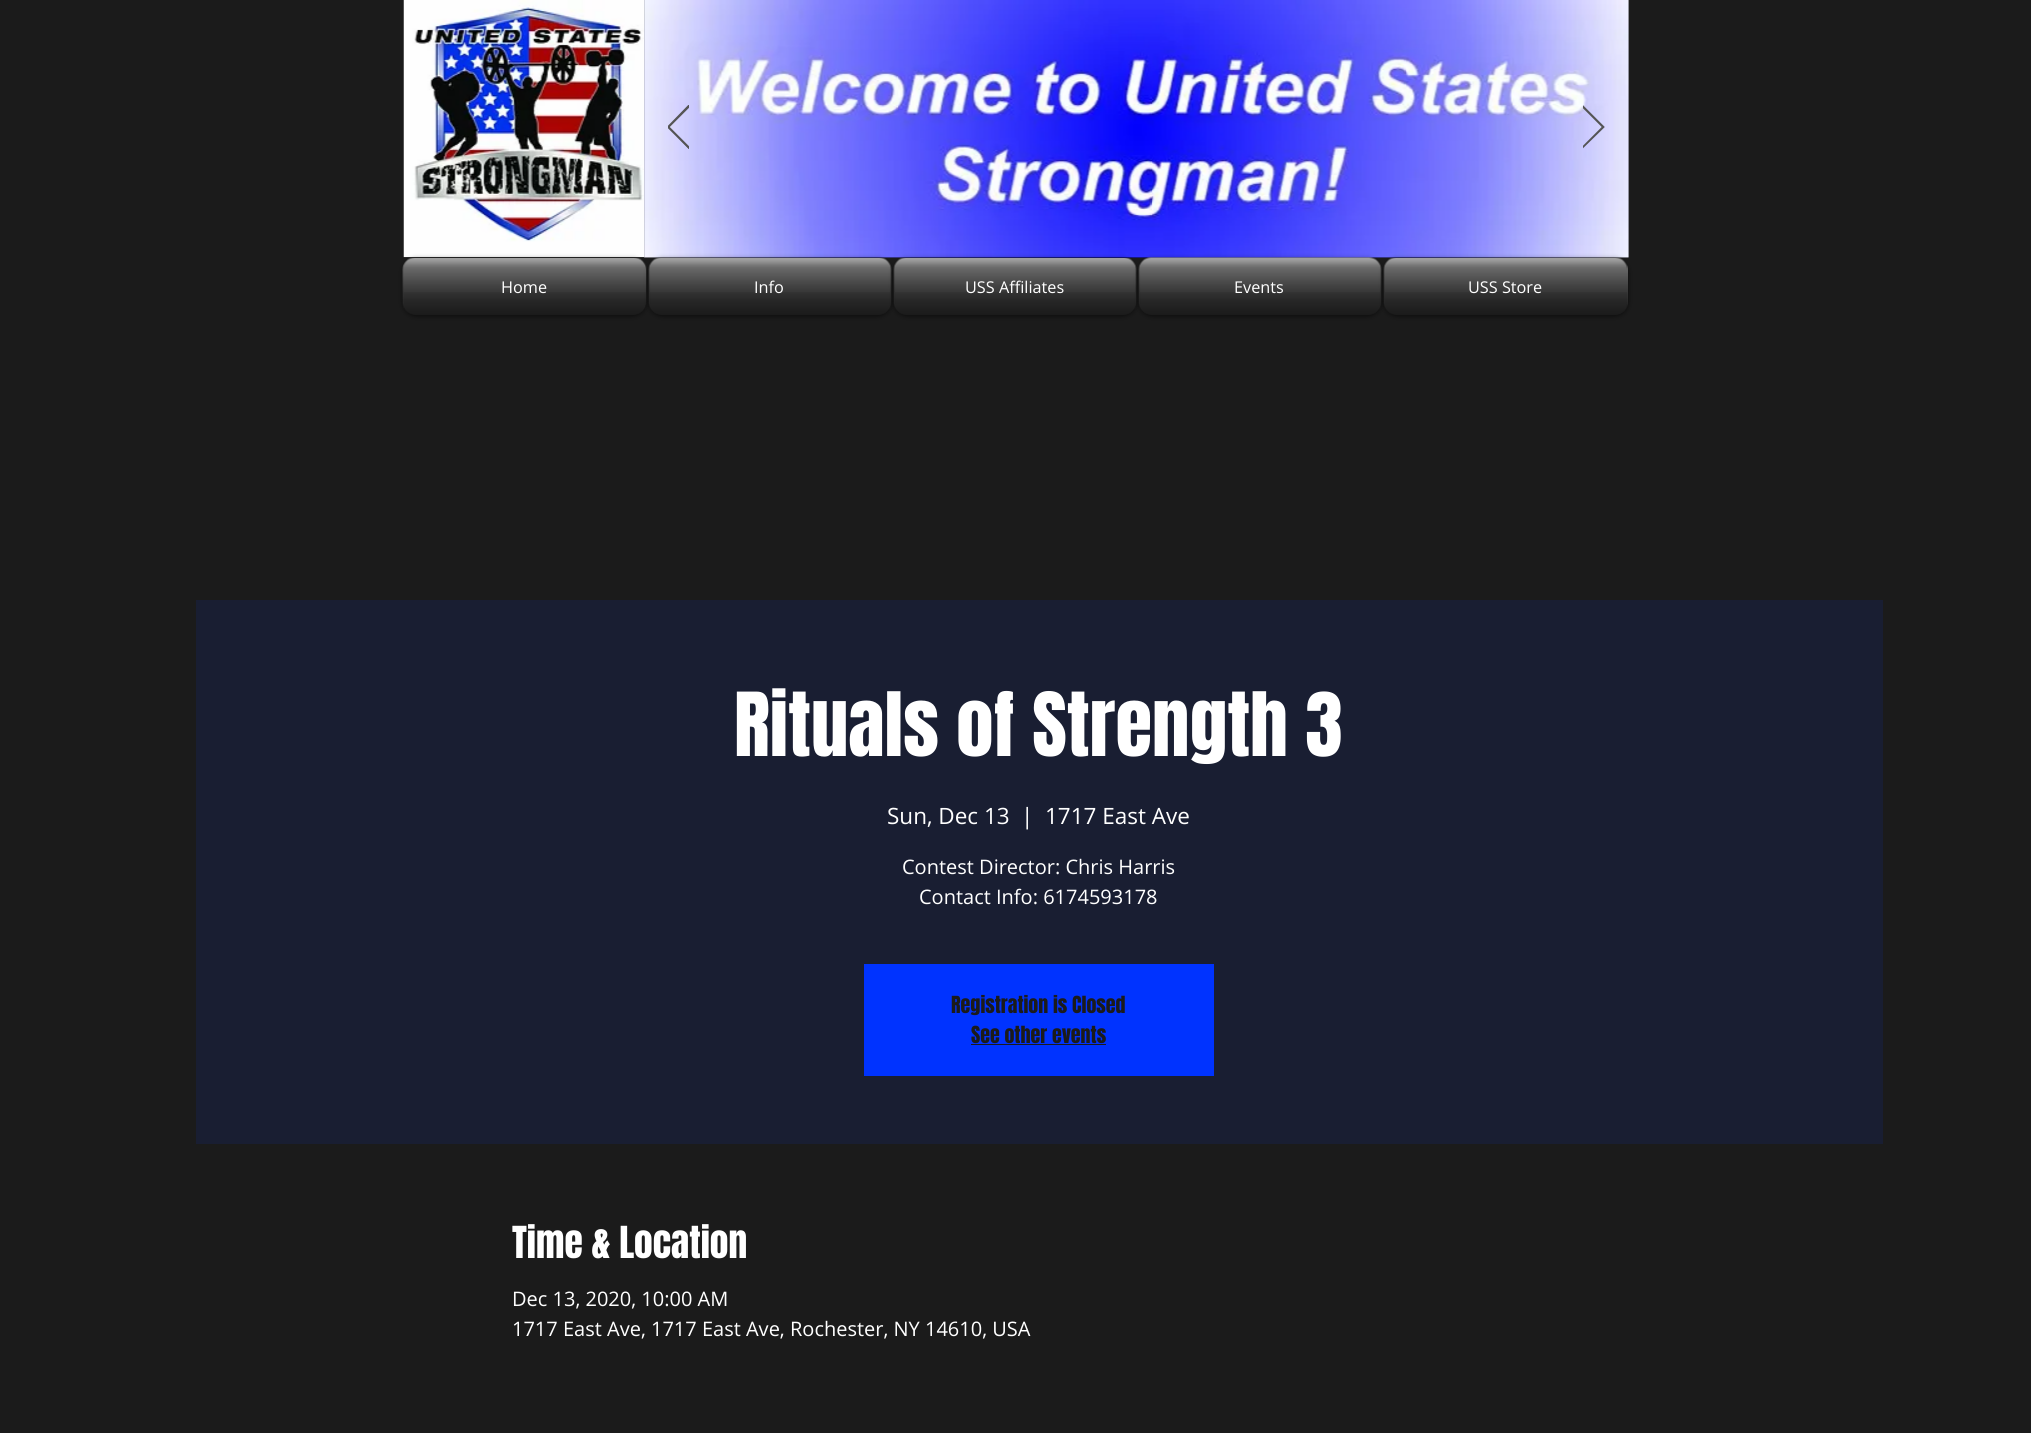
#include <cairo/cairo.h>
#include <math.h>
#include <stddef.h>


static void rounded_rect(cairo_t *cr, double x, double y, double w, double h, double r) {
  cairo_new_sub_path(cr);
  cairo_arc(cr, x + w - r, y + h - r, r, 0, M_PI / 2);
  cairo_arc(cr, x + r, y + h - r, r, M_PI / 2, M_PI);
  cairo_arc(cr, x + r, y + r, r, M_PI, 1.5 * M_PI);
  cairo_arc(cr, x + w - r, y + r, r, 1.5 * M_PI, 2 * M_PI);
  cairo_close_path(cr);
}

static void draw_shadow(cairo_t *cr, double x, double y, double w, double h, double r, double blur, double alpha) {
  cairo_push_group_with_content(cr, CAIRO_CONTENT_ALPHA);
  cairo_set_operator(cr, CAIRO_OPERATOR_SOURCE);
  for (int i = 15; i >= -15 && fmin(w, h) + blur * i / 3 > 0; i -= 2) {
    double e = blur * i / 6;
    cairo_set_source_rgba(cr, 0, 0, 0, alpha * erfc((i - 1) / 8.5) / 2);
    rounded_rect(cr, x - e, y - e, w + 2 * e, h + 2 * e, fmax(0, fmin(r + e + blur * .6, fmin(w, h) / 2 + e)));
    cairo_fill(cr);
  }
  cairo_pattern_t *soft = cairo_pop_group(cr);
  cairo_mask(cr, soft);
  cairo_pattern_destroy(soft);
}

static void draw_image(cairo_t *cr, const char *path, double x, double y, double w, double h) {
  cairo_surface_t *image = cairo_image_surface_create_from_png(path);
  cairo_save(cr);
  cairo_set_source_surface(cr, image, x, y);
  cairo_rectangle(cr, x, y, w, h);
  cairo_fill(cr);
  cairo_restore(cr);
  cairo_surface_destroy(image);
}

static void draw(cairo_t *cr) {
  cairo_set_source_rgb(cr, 27 / 255.0, 27 / 255.0, 27 / 255.0);
  cairo_paint(cr);
  draw_image(cr, "images/1.png", 403, 0, 241, 258);
  cairo_set_source_rgb(cr, 0, 0, 0);
  cairo_rectangle(cr, 644, 0, 985, 258);
  cairo_fill(cr);
  draw_image(cr, "images/2.png", 644, 0, 985, 258);
  cairo_save(cr);
  cairo_rectangle(cr, 668, 105, 21, 44);
  cairo_clip(cr);
  cairo_set_source_rgb(cr, 84 / 255.0, 84 / 255.0, 84 / 255.0);
  cairo_new_path(cr);
  cairo_move_to(cr, 689, 149);
  cairo_line_to(cr, 668, 127);
  cairo_line_to(cr, 689, 105);
  cairo_line_to(cr, 690, 106);
  cairo_line_to(cr, 669, 127);
  cairo_line_to(cr, 690, 148);
  cairo_close_path(cr);
  cairo_fill(cr);
  cairo_new_path(cr);
  cairo_move_to(cr, 689, 148.5);
  cairo_line_to(cr, 667.5, 127);
  cairo_line_to(cr, 689, 105);
  cairo_line_to(cr, 690, 106);
  cairo_line_to(cr, 669, 127);
  cairo_line_to(cr, 690, 148);
  cairo_close_path(cr);
  cairo_set_line_width(cr, 1.1);
  cairo_stroke(cr);
  cairo_restore(cr);
  cairo_save(cr);
  cairo_rectangle(cr, 1583, 105, 22, 44);
  cairo_clip(cr);
  cairo_new_path(cr);
  cairo_move_to(cr, 1582, 148.5);
  cairo_line_to(cr, 1604, 127);
  cairo_line_to(cr, 1582, 105);
  cairo_line_to(cr, 1581.5, 106);
  cairo_line_to(cr, 1602.5, 127);
  cairo_line_to(cr, 1581.5, 148);
  cairo_close_path(cr);
  cairo_set_source_rgb(cr, 84 / 255.0, 84 / 255.0, 84 / 255.0);
  cairo_set_line_width(cr, 1.1);
  cairo_stroke(cr);
  cairo_restore(cr);
  cairo_set_source_rgb(cr, 0, 0, 0);
  draw_shadow(cr, 403, 259, 243, 57, 13, 2.5, 0.6);
  cairo_set_source_rgb(cr, 27 / 255.0, 27 / 255.0, 27 / 255.0);
  rounded_rect(cr, 403, 258, 243, 57, 13);
  cairo_fill(cr);
  draw_image(cr, "images/3.png", 402, 258, 245, 56);
  draw_image(cr, "images/4.png", 404, 292, 242, 22);
  cairo_save(cr);
  cairo_set_fill_rule(cr, CAIRO_FILL_RULE_EVEN_ODD);
  cairo_new_path(cr);
  cairo_move_to(cr, 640, 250);
  cairo_line_to(cr, 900, 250);
  cairo_line_to(cr, 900, 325);
  cairo_line_to(cr, 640, 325);
  cairo_close_path(cr);
  cairo_move_to(cr, 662, 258);
  cairo_line_to(cr, 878, 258);
  cairo_curve_to(cr, 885, 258, 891, 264, 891, 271);
  cairo_line_to(cr, 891, 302);
  cairo_curve_to(cr, 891, 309, 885, 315, 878, 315);
  cairo_line_to(cr, 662, 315);
  cairo_curve_to(cr, 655, 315, 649, 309, 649, 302);
  cairo_line_to(cr, 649, 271);
  cairo_curve_to(cr, 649, 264, 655, 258, 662, 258);
  cairo_close_path(cr);
  cairo_clip(cr);
  cairo_set_source_rgb(cr, 0, 0, 0);
  draw_shadow(cr, 649, 259, 242, 57, 13, 2.5, 0.6);
  cairo_restore(cr);
  draw_image(cr, "images/5.png", 648, 258, 244, 56);
  draw_image(cr, "images/6.png", 650, 292, 240, 22);
  cairo_save(cr);
  cairo_set_fill_rule(cr, CAIRO_FILL_RULE_EVEN_ODD);
  cairo_new_path(cr);
  cairo_move_to(cr, 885, 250);
  cairo_line_to(cr, 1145, 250);
  cairo_line_to(cr, 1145, 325);
  cairo_line_to(cr, 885, 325);
  cairo_close_path(cr);
  cairo_move_to(cr, 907, 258);
  cairo_line_to(cr, 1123, 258);
  cairo_curve_to(cr, 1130, 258, 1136, 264, 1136, 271);
  cairo_line_to(cr, 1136, 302);
  cairo_curve_to(cr, 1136, 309, 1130, 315, 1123, 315);
  cairo_line_to(cr, 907, 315);
  cairo_curve_to(cr, 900, 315, 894, 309, 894, 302);
  cairo_line_to(cr, 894, 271);
  cairo_curve_to(cr, 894, 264, 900, 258, 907, 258);
  cairo_close_path(cr);
  cairo_clip(cr);
  cairo_set_source_rgb(cr, 0, 0, 0);
  draw_shadow(cr, 894, 259, 242, 57, 13, 2.5, 0.6);
  cairo_restore(cr);
  draw_image(cr, "images/7.png", 893, 258, 244, 56);
  draw_image(cr, "images/8.png", 895, 292, 240, 22);
  cairo_save(cr);
  cairo_set_fill_rule(cr, CAIRO_FILL_RULE_EVEN_ODD);
  cairo_new_path(cr);
  cairo_move_to(cr, 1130, 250);
  cairo_line_to(cr, 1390, 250);
  cairo_line_to(cr, 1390, 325);
  cairo_line_to(cr, 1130, 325);
  cairo_close_path(cr);
  cairo_move_to(cr, 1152, 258);
  cairo_line_to(cr, 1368, 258);
  cairo_curve_to(cr, 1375, 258, 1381, 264, 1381, 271);
  cairo_line_to(cr, 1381, 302);
  cairo_curve_to(cr, 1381, 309, 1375, 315, 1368, 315);
  cairo_line_to(cr, 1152, 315);
  cairo_curve_to(cr, 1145, 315, 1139, 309, 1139, 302);
  cairo_line_to(cr, 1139, 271);
  cairo_curve_to(cr, 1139, 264, 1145, 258, 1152, 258);
  cairo_close_path(cr);
  cairo_clip(cr);
  cairo_set_source_rgb(cr, 0, 0, 0);
  draw_shadow(cr, 1139, 259, 242, 57, 13, 2.5, 0.6);
  cairo_restore(cr);
  draw_image(cr, "images/9.png", 1138, 257, 244, 57);
  draw_image(cr, "images/10.png", 1140, 292, 240, 22);
  cairo_set_source_rgb(cr, 0, 0, 0);
  draw_shadow(cr, 1384, 259, 244, 57, 13, 2.5, 0.6);
  cairo_set_source_rgb(cr, 27 / 255.0, 27 / 255.0, 27 / 255.0);
  rounded_rect(cr, 1384, 258, 244, 57, 13);
  cairo_fill(cr);
  draw_image(cr, "images/11.png", 1383, 258, 245, 56);
  draw_image(cr, "images/12.png", 1385, 292, 242, 22);
  cairo_set_source_rgb(cr, 25 / 255.0, 30 / 255.0, 50 / 255.0);
  cairo_rectangle(cr, 196, 600, 1687, 544);
  cairo_fill(cr);
  cairo_set_source_rgb(cr, 0, 51 / 255.0, 1);
  cairo_rectangle(cr, 864, 964, 350, 112);
  cairo_fill(cr);
  cairo_set_source_rgb(cr, 27 / 255.0, 27 / 255.0, 27 / 255.0);
  cairo_rectangle(cr, 971, 1044, 135, 1);
  cairo_fill(cr);
  cairo_select_font_face(cr, "Open Sans", CAIRO_FONT_SLANT_NORMAL, CAIRO_FONT_WEIGHT_NORMAL);
  cairo_set_font_size(cr, 16.25);
  cairo_set_source_rgb(cr, 1, 1, 1);
  cairo_move_to(cr, 501, 293);
  cairo_show_text(cr, "Home");
  cairo_move_to(cr, 754, 293);
  cairo_show_text(cr, "Info");
  cairo_move_to(cr, 965, 293);
  cairo_show_text(cr, "USS Affiliates");
  cairo_move_to(cr, 1234, 293);
  cairo_show_text(cr, "Events");
  cairo_move_to(cr, 1468, 293);
  cairo_show_text(cr, "USS Store");
  cairo_select_font_face(cr, "Anton", CAIRO_FONT_SLANT_NORMAL, CAIRO_FONT_WEIGHT_NORMAL);
  cairo_set_font_size(cr, 75);
  cairo_move_to(cr, 734, 756);
  cairo_show_text(cr, "Rituals of Strength 3");
  cairo_select_font_face(cr, "Open Sans", CAIRO_FONT_SLANT_NORMAL, CAIRO_FONT_WEIGHT_NORMAL);
  cairo_set_font_size(cr, 22.5);
  cairo_move_to(cr, 887, 824);
  cairo_show_text(cr, "Sun, Dec 13");
  cairo_move_to(cr, 1021, 824);
  cairo_show_text(cr, "|");
  cairo_move_to(cr, 1045, 824);
  cairo_show_text(cr, "1717 East Ave");
  cairo_set_font_size(cr, 20);
  cairo_move_to(cr, 902, 874);
  cairo_show_text(cr, "Contest Director: Chris Harris");
  cairo_move_to(cr, 919, 904);
  cairo_show_text(cr, "Contact Info: 6174593178");
  cairo_select_font_face(cr, "Anton", CAIRO_FONT_SLANT_NORMAL, CAIRO_FONT_WEIGHT_NORMAL);
  cairo_set_source_rgb(cr, 27 / 255.0, 27 / 255.0, 27 / 255.0);
  cairo_move_to(cr, 951, 1013);
  cairo_show_text(cr, "Registration is Closed");
  cairo_move_to(cr, 971, 1043);
  cairo_show_text(cr, "See other events");
  cairo_set_font_size(cr, 37.5);
  cairo_set_source_rgb(cr, 1, 1, 1);
  cairo_move_to(cr, 512, 1258);
  cairo_show_text(cr, "Time & Location");
  cairo_select_font_face(cr, "Open Sans", CAIRO_FONT_SLANT_NORMAL, CAIRO_FONT_WEIGHT_NORMAL);
  cairo_set_font_size(cr, 20);
  cairo_move_to(cr, 512, 1306);
  cairo_show_text(cr, "Dec 13, 2020, 10:00 AM");
  cairo_move_to(cr, 512, 1336);
  cairo_show_text(cr, "1717 East Ave, 1717 East Ave, Rochester, NY 14610, USA");
}

int main(void) {
  cairo_surface_t *surface = cairo_image_surface_create(CAIRO_FORMAT_RGB24, 2031, 1433);
  cairo_t *cr = cairo_create(surface);
  cairo_font_options_t *options = cairo_font_options_create();
  cairo_font_options_set_hint_metrics(options, CAIRO_HINT_METRICS_OFF);
  cairo_font_options_set_hint_style(options, CAIRO_HINT_STYLE_NONE);
  cairo_set_font_options(cr, options);
  cairo_set_miter_limit(cr, 4);
  draw(cr);
  cairo_surface_write_to_png(surface, "out.png");
  cairo_font_options_destroy(options);
  cairo_destroy(cr);
  cairo_surface_destroy(surface);
  return 0;
}
